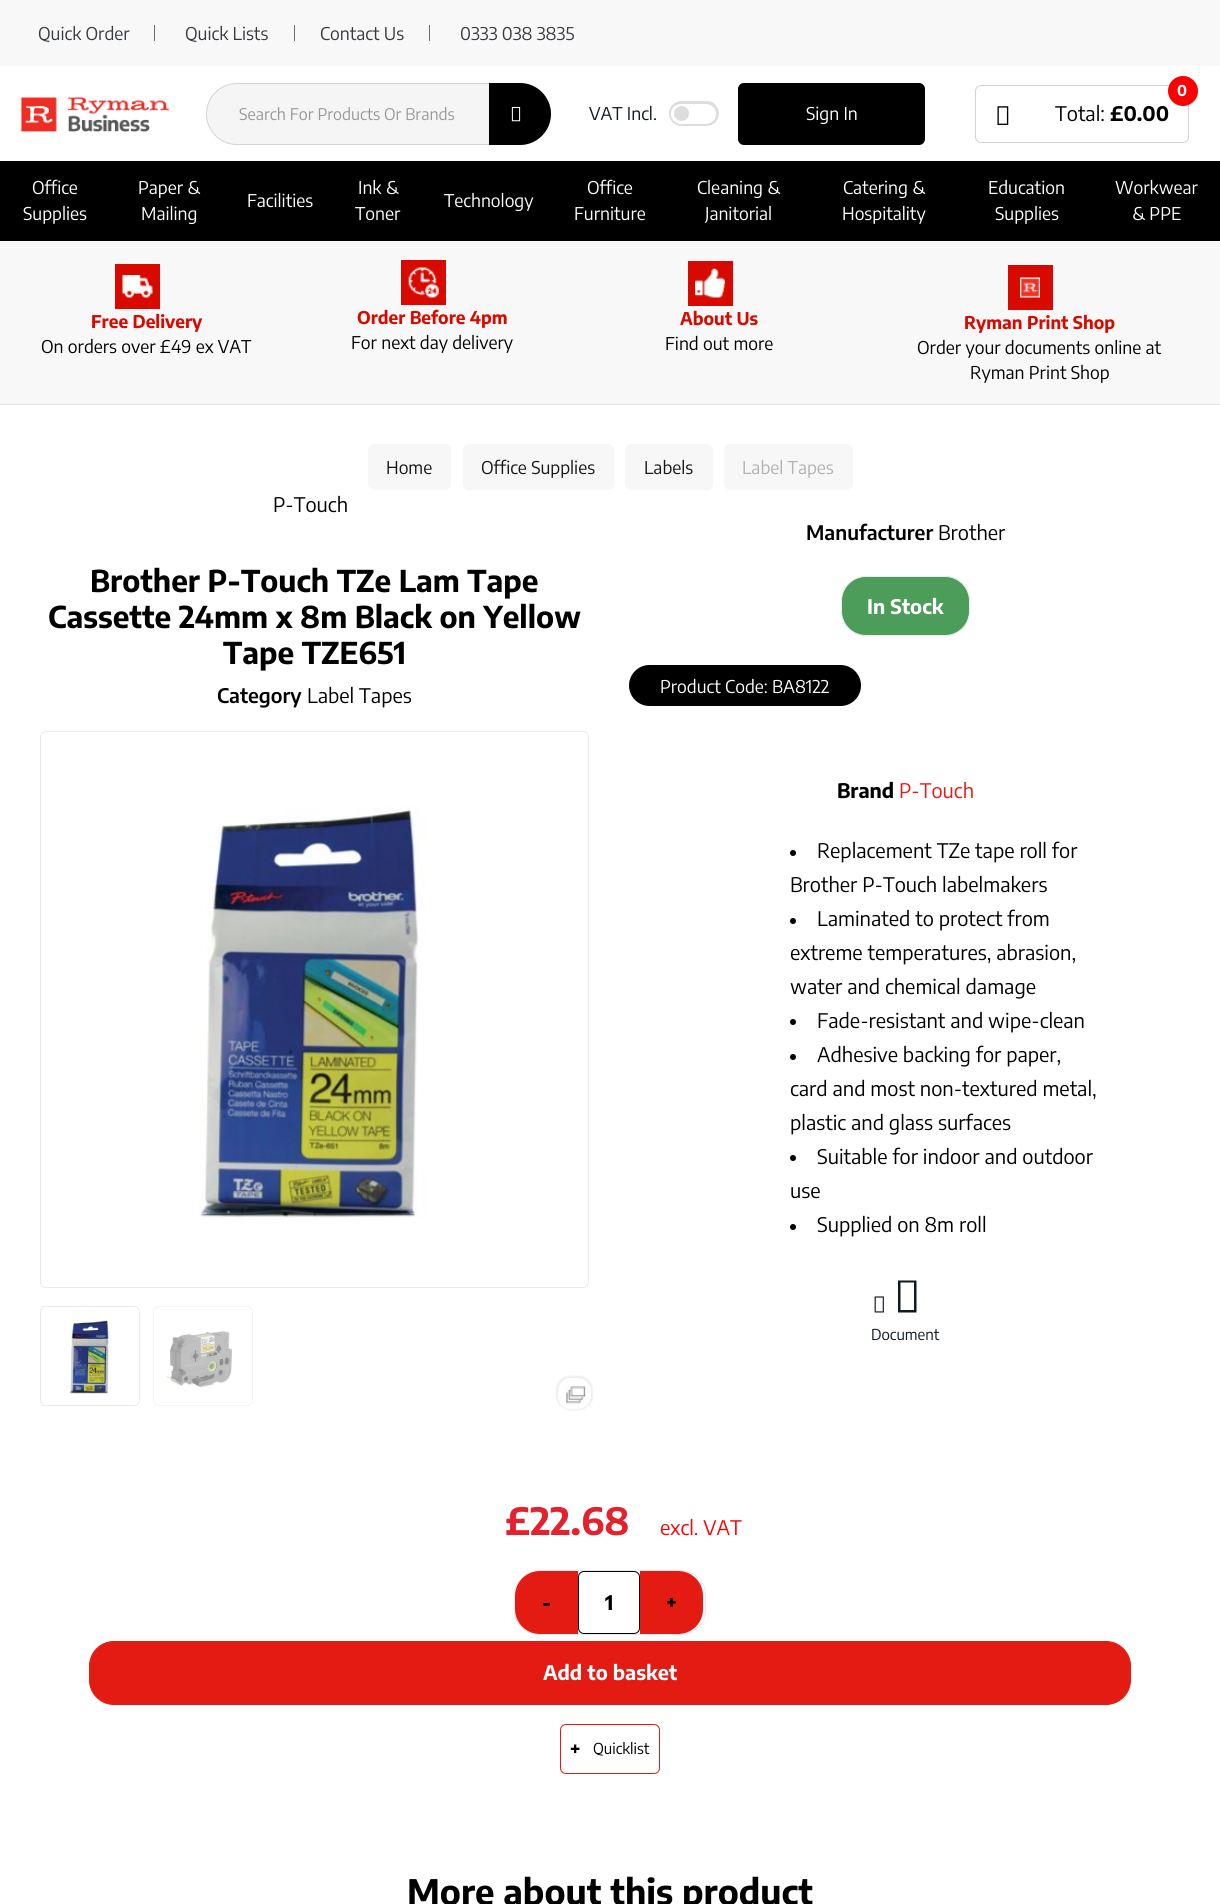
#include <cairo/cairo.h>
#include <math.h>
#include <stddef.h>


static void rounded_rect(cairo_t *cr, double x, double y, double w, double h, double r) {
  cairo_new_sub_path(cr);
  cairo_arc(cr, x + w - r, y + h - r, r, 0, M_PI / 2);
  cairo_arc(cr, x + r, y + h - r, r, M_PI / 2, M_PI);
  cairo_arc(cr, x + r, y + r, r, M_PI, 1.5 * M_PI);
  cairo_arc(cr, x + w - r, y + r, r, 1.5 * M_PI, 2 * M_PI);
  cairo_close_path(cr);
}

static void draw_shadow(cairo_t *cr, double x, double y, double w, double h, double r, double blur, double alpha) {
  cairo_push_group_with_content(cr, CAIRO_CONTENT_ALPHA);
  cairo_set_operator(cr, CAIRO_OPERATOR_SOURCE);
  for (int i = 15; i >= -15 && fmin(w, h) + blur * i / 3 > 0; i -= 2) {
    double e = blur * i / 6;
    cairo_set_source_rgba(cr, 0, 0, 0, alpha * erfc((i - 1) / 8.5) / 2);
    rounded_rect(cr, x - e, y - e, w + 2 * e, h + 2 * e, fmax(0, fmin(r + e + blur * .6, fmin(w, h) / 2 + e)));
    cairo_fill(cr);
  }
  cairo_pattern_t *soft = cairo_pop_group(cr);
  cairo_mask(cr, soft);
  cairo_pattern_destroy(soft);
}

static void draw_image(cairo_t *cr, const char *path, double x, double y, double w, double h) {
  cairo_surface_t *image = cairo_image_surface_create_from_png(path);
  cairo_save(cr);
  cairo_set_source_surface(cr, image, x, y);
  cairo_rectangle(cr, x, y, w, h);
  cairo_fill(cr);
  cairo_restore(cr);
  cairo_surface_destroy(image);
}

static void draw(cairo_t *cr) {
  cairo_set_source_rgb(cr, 1, 1, 1);
  cairo_paint(cr);
  cairo_set_source_rgb(cr, 248 / 255.0, 248 / 255.0, 248 / 255.0);
  cairo_rectangle(cr, 0, 0, 1220, 66);
  cairo_fill(cr);
  cairo_set_source_rgb(cr, 107 / 255.0, 107 / 255.0, 107 / 255.0);
  cairo_rectangle(cr, 154, 25, 1, 16);
  cairo_fill(cr);
  cairo_rectangle(cr, 294, 25, 1, 16);
  cairo_fill(cr);
  cairo_rectangle(cr, 429, 25, 1, 16);
  cairo_fill(cr);
  draw_image(cr, "images/1.png", 20, 96, 149, 36);
  cairo_set_source_rgb(cr, 245 / 255.0, 245 / 255.0, 245 / 255.0);
  rounded_rect(cr, 206.5, 83.5, 344, 61, 30.5);
  cairo_fill_preserve(cr);
  cairo_set_source_rgb(cr, 211 / 255.0, 211 / 255.0, 211 / 255.0);
  cairo_set_line_width(cr, 1);
  cairo_stroke(cr);
  cairo_set_source_rgb(cr, 0, 0, 0);
  cairo_new_path(cr);
  cairo_move_to(cr, 489, 83);
  cairo_line_to(cr, 520, 83);
  cairo_curve_to(cr, 537, 83, 551, 97, 551, 114);
  cairo_curve_to(cr, 551, 131, 537, 145, 520, 145);
  cairo_line_to(cr, 489, 145);
  cairo_close_path(cr);
  cairo_fill(cr);
  draw_image(cr, "images/2.png", 511, 106, 10, 16);
  cairo_set_source_rgb(cr, 221 / 255.0, 221 / 255.0, 221 / 255.0);
  rounded_rect(cr, 669, 101, 50, 25, 12.5);
  cairo_fill(cr);
  cairo_set_source_rgb(cr, 1, 1, 1);
  rounded_rect(cr, 671, 104, 45, 20, 10);
  cairo_fill(cr);
  cairo_set_source_rgb(cr, 221 / 255.0, 221 / 255.0, 221 / 255.0);
  cairo_arc(cr, 681.5, 113.5, 7.5, 0, 2 * M_PI);
  cairo_fill(cr);
  cairo_set_source_rgb(cr, 0, 0, 0);
  rounded_rect(cr, 739.5, 84.5, 184, 59, 4.5);
  cairo_fill_preserve(cr);
  cairo_set_line_width(cr, 3);
  cairo_stroke(cr);
  rounded_rect(cr, 975.5, 85.5, 213, 57, 5.5);
  cairo_set_source_rgb(cr, 211 / 255.0, 211 / 255.0, 211 / 255.0);
  cairo_set_line_width(cr, 1);
  cairo_stroke(cr);
  cairo_set_source_rgb(cr, 1, 0, 0);
  cairo_arc(cr, 1183, 91, 15, 0, 2 * M_PI);
  cairo_fill(cr);
  draw_image(cr, "images/3.png", 997, 106, 12, 19);
  cairo_set_source_rgb(cr, 0, 0, 0);
  cairo_rectangle(cr, 0, 161, 1220, 80);
  cairo_fill(cr);
  cairo_set_source_rgb(cr, 248 / 255.0, 248 / 255.0, 248 / 255.0);
  cairo_rectangle(cr, 0, 241, 1220, 163);
  cairo_fill(cr);
  cairo_set_source_rgb(cr, 234 / 255.0, 234 / 255.0, 234 / 255.0);
  cairo_rectangle(cr, 0, 404, 1220, 1);
  cairo_fill(cr);
  cairo_set_source_rgb(cr, 216 / 255.0, 10 / 255.0, 0);
  cairo_rectangle(cr, 115, 264, 45, 45);
  cairo_fill(cr);
  draw_image(cr, "images/4.png", 122, 275, 31, 23);
  cairo_rectangle(cr, 401, 260, 45, 45);
  cairo_fill(cr);
  draw_image(cr, "images/5.png", 408, 267, 31, 31);
  cairo_rectangle(cr, 688, 261, 45, 45);
  cairo_fill(cr);
  draw_image(cr, "images/6.png", 695, 268, 30, 30);
  cairo_rectangle(cr, 1008, 265, 45, 45);
  cairo_fill(cr);
  draw_image(cr, "images/7.png", 1020, 277, 20, 21);
  cairo_set_source_rgb(cr, 247 / 255.0, 247 / 255.0, 247 / 255.0);
  rounded_rect(cr, 368, 444, 83, 46, 6);
  cairo_fill(cr);
  rounded_rect(cr, 463, 444, 151, 46, 6);
  cairo_fill(cr);
  rounded_rect(cr, 625, 444, 88, 46, 6);
  cairo_fill(cr);
  rounded_rect(cr, 724, 444, 129, 46, 6);
  cairo_fill(cr);
  rounded_rect(cr, 40.5, 731.5, 548, 556, 5.5);
  cairo_set_source_rgb(cr, 234 / 255.0, 234 / 255.0, 234 / 255.0);
  cairo_stroke(cr);
  draw_image(cr, "images/8.png", 199, 807, 227, 412);
  rounded_rect(cr, 40.5, 1306.5, 99, 99, 5.5);
  cairo_stroke(cr);
  draw_image(cr, "images/9.png", 69, 1320, 40, 74);
  rounded_rect(cr, 153.5, 1306.5, 99, 99, 5.5);
  cairo_set_source_rgb(cr, 245 / 255.0, 245 / 255.0, 245 / 255.0);
  cairo_stroke(cr);
  draw_image(cr, "images/10.png", 166, 1331, 67, 57);
  cairo_set_source_rgb(cr, 0, 0, 0);
  draw_shadow(cr, 556, 1376, 37, 34, 14, 1, 0.07);
  cairo_set_source_rgb(cr, 1, 1, 1);
  rounded_rect(cr, 558, 1378, 33, 31, 13);
  cairo_fill(cr);
  draw_image(cr, "images/11.png", 566, 1386, 22, 20);
  cairo_set_source_rgb(cr, 75 / 255.0, 157 / 255.0, 89 / 255.0);
  rounded_rect(cr, 841.5, 576.5, 128, 59, 24.5);
  cairo_fill_preserve(cr);
  cairo_set_source_rgb(cr, 234 / 255.0, 234 / 255.0, 234 / 255.0);
  cairo_stroke(cr);
  cairo_set_source_rgb(cr, 0, 0, 0);
  rounded_rect(cr, 629, 665, 232, 41, 20.5);
  cairo_fill(cr);
  cairo_arc(cr, 793, 853, 3, 0, 2 * M_PI);
  cairo_fill(cr);
  cairo_arc(cr, 793, 921, 3, 0, 2 * M_PI);
  cairo_fill(cr);
  cairo_arc(cr, 793, 1022, 3, 0, 2 * M_PI);
  cairo_fill(cr);
  cairo_arc(cr, 793, 1057, 3, 0, 2 * M_PI);
  cairo_fill(cr);
  cairo_arc(cr, 793, 1158, 3, 0, 2 * M_PI);
  cairo_fill(cr);
  cairo_arc(cr, 793, 1227, 3, 0, 2 * M_PI);
  cairo_fill(cr);
  draw_image(cr, "images/12.png", 874, 1296, 10, 17);
  cairo_set_source_rgb(cr, 16 / 255.0, 24 / 255.0, 32 / 255.0);
  cairo_new_path(cr);
  cairo_move_to(cr, 898, 1312.5);
  cairo_line_to(cr, 898, 1280.5);
  cairo_line_to(cr, 916.5, 1280.5);
  cairo_line_to(cr, 916.5, 1312.5);
  cairo_close_path(cr);
  cairo_move_to(cr, 900.5, 1310);
  cairo_line_to(cr, 914, 1310);
  cairo_line_to(cr, 914, 1282.5);
  cairo_line_to(cr, 900.5, 1282.5);
  cairo_close_path(cr);
  cairo_fill(cr);
  rounded_rect(cr, 514.5, 1570.5, 191, 64, 24.5);
  cairo_set_source_rgb(cr, 234 / 255.0, 234 / 255.0, 234 / 255.0);
  cairo_stroke(cr);
  cairo_set_source_rgb(cr, 228 / 255.0, 27 / 255.0, 19 / 255.0);
  cairo_new_path(cr);
  cairo_move_to(cr, 540, 1571);
  cairo_line_to(cr, 578, 1571);
  cairo_line_to(cr, 578, 1634);
  cairo_line_to(cr, 540, 1634);
  cairo_curve_to(cr, 526, 1634, 515, 1623, 515, 1609);
  cairo_line_to(cr, 515, 1596);
  cairo_curve_to(cr, 515, 1582, 526, 1571, 540, 1571);
  cairo_close_path(cr);
  cairo_fill(cr);
  rounded_rect(cr, 578.5, 1571.5, 61, 62, 5.5);
  cairo_set_source_rgb(cr, 0, 0, 0);
  cairo_stroke(cr);
  cairo_set_source_rgb(cr, 228 / 255.0, 27 / 255.0, 19 / 255.0);
  cairo_new_path(cr);
  cairo_move_to(cr, 640, 1571);
  cairo_line_to(cr, 678, 1571);
  cairo_curve_to(cr, 692, 1571, 703, 1582, 703, 1596);
  cairo_line_to(cr, 703, 1609);
  cairo_curve_to(cr, 703, 1623, 692, 1634, 678, 1634);
  cairo_line_to(cr, 640, 1634);
  cairo_close_path(cr);
  cairo_fill(cr);
  rounded_rect(cr, 89.5, 1641.5, 1041, 63, 24.5);
  cairo_fill_preserve(cr);
  cairo_stroke(cr);
  rounded_rect(cr, 560.5, 1724.5, 99, 49, 5.5);
  cairo_stroke(cr);
  cairo_select_font_face(cr, "Encode Sans Condensed", CAIRO_FONT_SLANT_NORMAL, CAIRO_FONT_WEIGHT_NORMAL);
  cairo_set_font_size(cr, 17.5);
  cairo_set_source_rgb(cr, 54 / 255.0, 58 / 255.0, 63 / 255.0);
  cairo_move_to(cr, 38, 40);
  cairo_show_text(cr, "Quick Order");
  cairo_move_to(cr, 185, 40);
  cairo_show_text(cr, "Quick Lists");
  cairo_move_to(cr, 320, 40);
  cairo_show_text(cr, "Contact Us");
  cairo_move_to(cr, 460, 40);
  cairo_show_text(cr, "0333 038 3835");
  cairo_set_font_size(cr, 16);
  cairo_set_source_rgb(cr, 153 / 255.0, 153 / 255.0, 153 / 255.0);
  cairo_move_to(cr, 239, 120);
  cairo_show_text(cr, "Search For Products Or Brands");
  cairo_set_font_size(cr, 17.5);
  cairo_set_source_rgb(cr, 16 / 255.0, 24 / 255.0, 32 / 255.0);
  cairo_move_to(cr, 589, 120);
  cairo_show_text(cr, "VAT Incl.");
  cairo_set_source_rgb(cr, 1, 1, 1);
  cairo_move_to(cr, 806, 120);
  cairo_show_text(cr, "Sign In");
  cairo_select_font_face(cr, "Encode Sans Condensed", CAIRO_FONT_SLANT_NORMAL, CAIRO_FONT_WEIGHT_BOLD);
  cairo_set_font_size(cr, 15);
  cairo_move_to(cr, 1177, 96);
  cairo_show_text(cr, "0");
  cairo_select_font_face(cr, "Encode Sans Condensed", CAIRO_FONT_SLANT_NORMAL, CAIRO_FONT_WEIGHT_NORMAL);
  cairo_set_font_size(cr, 20);
  cairo_set_source_rgb(cr, 0, 0, 0);
  cairo_move_to(cr, 1055, 121);
  cairo_show_text(cr, "Total:");
  cairo_select_font_face(cr, "Encode Sans Condensed", CAIRO_FONT_SLANT_NORMAL, CAIRO_FONT_WEIGHT_BOLD);
  cairo_move_to(cr, 1110, 121);
  cairo_show_text(cr, "£0.00");
  cairo_select_font_face(cr, "Encode Sans Condensed", CAIRO_FONT_SLANT_NORMAL, CAIRO_FONT_WEIGHT_NORMAL);
  cairo_set_font_size(cr, 17.5);
  cairo_set_source_rgb(cr, 1, 1, 1);
  cairo_move_to(cr, 32, 194);
  cairo_show_text(cr, "Office");
  cairo_move_to(cr, 23, 220);
  cairo_show_text(cr, "Supplies");
  cairo_move_to(cr, 138, 194);
  cairo_show_text(cr, "Paper &");
  cairo_move_to(cr, 141, 220);
  cairo_show_text(cr, "Mailing");
  cairo_move_to(cr, 247, 207);
  cairo_show_text(cr, "Facilities");
  cairo_move_to(cr, 358, 194);
  cairo_show_text(cr, "Ink &");
  cairo_move_to(cr, 355, 220);
  cairo_show_text(cr, "Toner");
  cairo_move_to(cr, 444, 207);
  cairo_show_text(cr, "Technology");
  cairo_move_to(cr, 587, 194);
  cairo_show_text(cr, "Office");
  cairo_move_to(cr, 574, 220);
  cairo_show_text(cr, "Furniture");
  cairo_move_to(cr, 697, 194);
  cairo_show_text(cr, "Cleaning &");
  cairo_move_to(cr, 705, 220);
  cairo_show_text(cr, "Janitorial");
  cairo_move_to(cr, 843, 194);
  cairo_show_text(cr, "Catering &");
  cairo_move_to(cr, 842, 220);
  cairo_show_text(cr, "Hospitality");
  cairo_move_to(cr, 988, 194);
  cairo_show_text(cr, "Education");
  cairo_move_to(cr, 995, 220);
  cairo_show_text(cr, "Supplies");
  cairo_move_to(cr, 1115, 194);
  cairo_show_text(cr, "Workwear");
  cairo_move_to(cr, 1132, 220);
  cairo_show_text(cr, "& PPE");
  cairo_select_font_face(cr, "Encode Sans Condensed", CAIRO_FONT_SLANT_NORMAL, CAIRO_FONT_WEIGHT_BOLD);
  cairo_set_source_rgb(cr, 216 / 255.0, 10 / 255.0, 0);
  cairo_move_to(cr, 91, 328);
  cairo_show_text(cr, "Free Delivery");
  cairo_select_font_face(cr, "Encode Sans Condensed", CAIRO_FONT_SLANT_NORMAL, CAIRO_FONT_WEIGHT_NORMAL);
  cairo_set_source_rgb(cr, 0, 0, 0);
  cairo_move_to(cr, 41, 353);
  cairo_show_text(cr, "On orders over £49 ex VAT");
  cairo_select_font_face(cr, "Encode Sans Condensed", CAIRO_FONT_SLANT_NORMAL, CAIRO_FONT_WEIGHT_BOLD);
  cairo_set_source_rgb(cr, 216 / 255.0, 10 / 255.0, 0);
  cairo_move_to(cr, 357, 324);
  cairo_show_text(cr, "Order Before 4pm");
  cairo_select_font_face(cr, "Encode Sans Condensed", CAIRO_FONT_SLANT_NORMAL, CAIRO_FONT_WEIGHT_NORMAL);
  cairo_set_source_rgb(cr, 0, 0, 0);
  cairo_move_to(cr, 351, 349);
  cairo_show_text(cr, "For next day delivery");
  cairo_select_font_face(cr, "Encode Sans Condensed", CAIRO_FONT_SLANT_NORMAL, CAIRO_FONT_WEIGHT_BOLD);
  cairo_set_source_rgb(cr, 216 / 255.0, 10 / 255.0, 0);
  cairo_move_to(cr, 680, 325);
  cairo_show_text(cr, "About Us");
  cairo_select_font_face(cr, "Encode Sans Condensed", CAIRO_FONT_SLANT_NORMAL, CAIRO_FONT_WEIGHT_NORMAL);
  cairo_set_source_rgb(cr, 0, 0, 0);
  cairo_move_to(cr, 665, 350);
  cairo_show_text(cr, "Find out more");
  cairo_select_font_face(cr, "Encode Sans Condensed", CAIRO_FONT_SLANT_NORMAL, CAIRO_FONT_WEIGHT_BOLD);
  cairo_set_source_rgb(cr, 216 / 255.0, 10 / 255.0, 0);
  cairo_move_to(cr, 964, 329);
  cairo_show_text(cr, "Ryman Print Shop");
  cairo_select_font_face(cr, "Encode Sans Condensed", CAIRO_FONT_SLANT_NORMAL, CAIRO_FONT_WEIGHT_NORMAL);
  cairo_set_source_rgb(cr, 0, 0, 0);
  cairo_move_to(cr, 917, 354);
  cairo_show_text(cr, "Order your documents online at");
  cairo_move_to(cr, 970, 379);
  cairo_show_text(cr, "Ryman Print Shop");
  cairo_set_source_rgb(cr, 24 / 255.0, 22 / 255.0, 22 / 255.0);
  cairo_move_to(cr, 386, 474);
  cairo_show_text(cr, "Home");
  cairo_move_to(cr, 481, 474);
  cairo_show_text(cr, "Office Supplies");
  cairo_move_to(cr, 644, 474);
  cairo_show_text(cr, "Labels");
  cairo_set_source_rgb(cr, 178 / 255.0, 178 / 255.0, 178 / 255.0);
  cairo_move_to(cr, 742, 474);
  cairo_show_text(cr, "Label Tapes");
  cairo_set_font_size(cr, 20);
  cairo_set_source_rgb(cr, 0, 0, 0);
  cairo_move_to(cr, 273, 512);
  cairo_show_text(cr, "P-Touch");
  cairo_select_font_face(cr, "Encode Sans Condensed", CAIRO_FONT_SLANT_NORMAL, CAIRO_FONT_WEIGHT_BOLD);
  cairo_set_font_size(cr, 30);
  cairo_move_to(cr, 90, 592);
  cairo_show_text(cr, "Brother P-Touch TZe Lam Tape");
  cairo_move_to(cr, 48, 628);
  cairo_show_text(cr, "Cassette 24mm x 8m Black on Yellow");
  cairo_move_to(cr, 223, 664);
  cairo_show_text(cr, "Tape TZE651");
  cairo_select_font_face(cr, "Encode Sans Condensed SemiBold", CAIRO_FONT_SLANT_NORMAL, CAIRO_FONT_WEIGHT_NORMAL);
  cairo_set_font_size(cr, 20);
  cairo_move_to(cr, 217, 703);
  cairo_show_text(cr, "Category");
  cairo_select_font_face(cr, "Encode Sans Condensed", CAIRO_FONT_SLANT_NORMAL, CAIRO_FONT_WEIGHT_NORMAL);
  cairo_move_to(cr, 307, 703);
  cairo_show_text(cr, "Label Tapes");
  cairo_select_font_face(cr, "Encode Sans Condensed SemiBold", CAIRO_FONT_SLANT_NORMAL, CAIRO_FONT_WEIGHT_NORMAL);
  cairo_move_to(cr, 806, 540);
  cairo_show_text(cr, "Manufacturer");
  cairo_select_font_face(cr, "Encode Sans Condensed", CAIRO_FONT_SLANT_NORMAL, CAIRO_FONT_WEIGHT_NORMAL);
  cairo_move_to(cr, 938, 540);
  cairo_show_text(cr, "Brother");
  cairo_select_font_face(cr, "Encode Sans Condensed", CAIRO_FONT_SLANT_NORMAL, CAIRO_FONT_WEIGHT_BOLD);
  cairo_set_source_rgb(cr, 1, 1, 1);
  cairo_move_to(cr, 867, 614);
  cairo_show_text(cr, "In Stock");
  cairo_select_font_face(cr, "Encode Sans Condensed", CAIRO_FONT_SLANT_NORMAL, CAIRO_FONT_WEIGHT_NORMAL);
  cairo_set_font_size(cr, 17.5);
  cairo_move_to(cr, 660, 693);
  cairo_show_text(cr, "Product Code: BA8122");
  cairo_select_font_face(cr, "Encode Sans Condensed", CAIRO_FONT_SLANT_NORMAL, CAIRO_FONT_WEIGHT_BOLD);
  cairo_set_font_size(cr, 20);
  cairo_set_source_rgb(cr, 0, 0, 0);
  cairo_move_to(cr, 837, 798);
  cairo_show_text(cr, "Brand");
  cairo_select_font_face(cr, "Encode Sans Condensed", CAIRO_FONT_SLANT_NORMAL, CAIRO_FONT_WEIGHT_NORMAL);
  cairo_set_source_rgb(cr, 228 / 255.0, 27 / 255.0, 19 / 255.0);
  cairo_move_to(cr, 899, 798);
  cairo_show_text(cr, "P-Touch");
  cairo_set_source_rgb(cr, 0, 0, 0);
  cairo_move_to(cr, 817, 858);
  cairo_show_text(cr, "Replacement TZe tape roll for");
  cairo_move_to(cr, 790, 892);
  cairo_show_text(cr, "Brother P-Touch labelmakers");
  cairo_move_to(cr, 817, 926);
  cairo_show_text(cr, "Laminated to protect from");
  cairo_move_to(cr, 790, 960);
  cairo_show_text(cr, "extreme temperatures, abrasion,");
  cairo_move_to(cr, 790, 994);
  cairo_show_text(cr, "water and chemical damage");
  cairo_move_to(cr, 817, 1028);
  cairo_show_text(cr, "Fade-resistant and wipe-clean");
  cairo_move_to(cr, 817, 1062);
  cairo_show_text(cr, "Adhesive backing for paper,");
  cairo_move_to(cr, 790, 1096);
  cairo_show_text(cr, "card and most non-textured metal,");
  cairo_move_to(cr, 790, 1130);
  cairo_show_text(cr, "plastic and glass surfaces");
  cairo_move_to(cr, 817, 1164);
  cairo_show_text(cr, "Suitable for indoor and outdoor");
  cairo_move_to(cr, 790, 1198);
  cairo_show_text(cr, "use");
  cairo_move_to(cr, 817, 1232);
  cairo_show_text(cr, "Supplied on 8m roll");
  cairo_set_font_size(cr, 15);
  cairo_set_source_rgb(cr, 16 / 255.0, 24 / 255.0, 32 / 255.0);
  cairo_move_to(cr, 871, 1340);
  cairo_show_text(cr, "Document");
  cairo_select_font_face(cr, "Encode Sans Condensed", CAIRO_FONT_SLANT_NORMAL, CAIRO_FONT_WEIGHT_BOLD);
  cairo_set_font_size(cr, 37.5);
  cairo_set_source_rgb(cr, 228 / 255.0, 34 / 255.0, 46 / 255.0);
  cairo_move_to(cr, 505, 1535);
  cairo_show_text(cr, "£22.68");
  cairo_select_font_face(cr, "Encode Sans Condensed", CAIRO_FONT_SLANT_NORMAL, CAIRO_FONT_WEIGHT_NORMAL);
  cairo_set_font_size(cr, 20);
  cairo_set_source_rgb(cr, 1, 0, 0);
  cairo_move_to(cr, 660, 1535);
  cairo_show_text(cr, "excl. VAT");
  cairo_select_font_face(cr, "Encode Sans Condensed", CAIRO_FONT_SLANT_NORMAL, CAIRO_FONT_WEIGHT_BOLD);
  cairo_set_source_rgb(cr, 0, 0, 0);
  cairo_move_to(cr, 542, 1610);
  cairo_show_text(cr, "-");
  cairo_move_to(cr, 605, 1610);
  cairo_show_text(cr, "1");
  cairo_move_to(cr, 666, 1610);
  cairo_show_text(cr, "+");
  cairo_set_source_rgb(cr, 1, 1, 1);
  cairo_move_to(cr, 543, 1680);
  cairo_show_text(cr, "Add to basket");
  cairo_select_font_face(cr, "Noto Sans Black", CAIRO_FONT_SLANT_NORMAL, CAIRO_FONT_WEIGHT_NORMAL);
  cairo_set_font_size(cr, 17.5);
  cairo_set_source_rgb(cr, 0, 0, 0);
  cairo_move_to(cr, 570, 1755);
  cairo_show_text(cr, "+");
  cairo_select_font_face(cr, "Encode Sans Condensed", CAIRO_FONT_SLANT_NORMAL, CAIRO_FONT_WEIGHT_NORMAL);
  cairo_set_font_size(cr, 15);
  cairo_move_to(cr, 593, 1754);
  cairo_show_text(cr, "Quicklist");
  cairo_select_font_face(cr, "Encode Sans Condensed", CAIRO_FONT_SLANT_NORMAL, CAIRO_FONT_WEIGHT_BOLD);
  cairo_set_font_size(cr, 35);
  cairo_move_to(cr, 407, 1905);
  cairo_show_text(cr, "More about this product");
}

int main(void) {
  cairo_surface_t *surface = cairo_image_surface_create(CAIRO_FORMAT_RGB24, 1220, 1904);
  cairo_t *cr = cairo_create(surface);
  cairo_font_options_t *options = cairo_font_options_create();
  cairo_font_options_set_hint_metrics(options, CAIRO_HINT_METRICS_OFF);
  cairo_font_options_set_hint_style(options, CAIRO_HINT_STYLE_NONE);
  cairo_set_font_options(cr, options);
  cairo_set_miter_limit(cr, 4);
  draw(cr);
  cairo_surface_write_to_png(surface, "out.png");
  cairo_font_options_destroy(options);
  cairo_destroy(cr);
  cairo_surface_destroy(surface);
  return 0;
}
